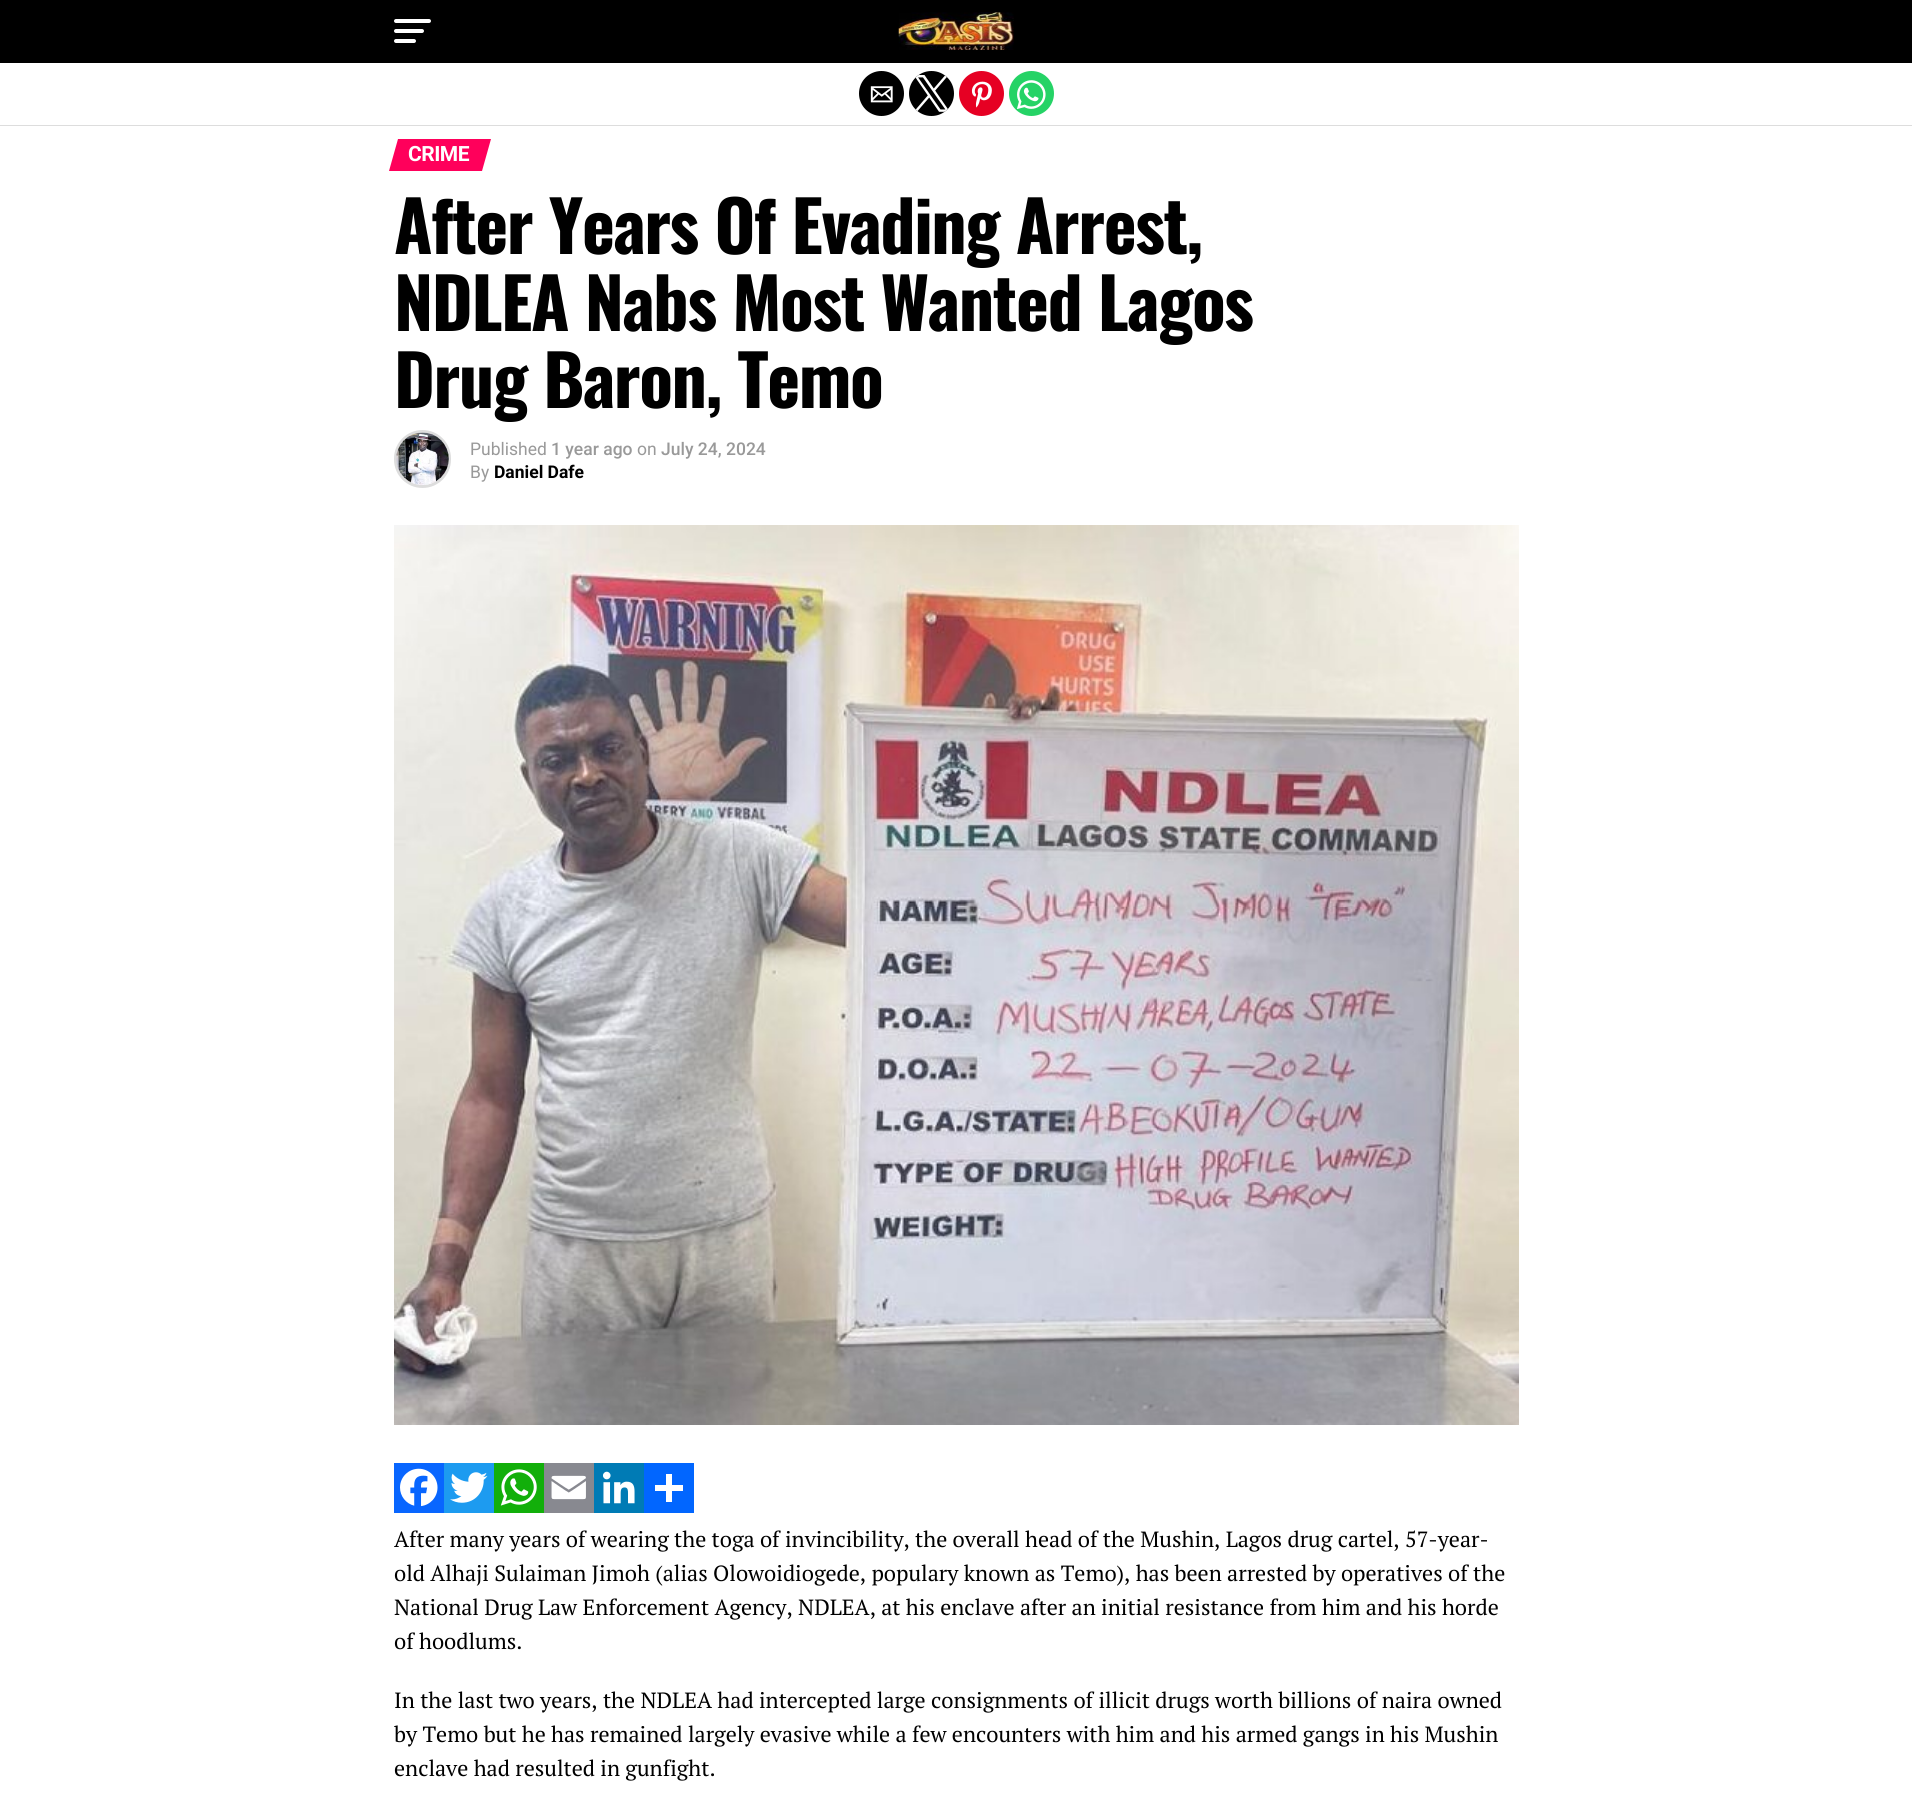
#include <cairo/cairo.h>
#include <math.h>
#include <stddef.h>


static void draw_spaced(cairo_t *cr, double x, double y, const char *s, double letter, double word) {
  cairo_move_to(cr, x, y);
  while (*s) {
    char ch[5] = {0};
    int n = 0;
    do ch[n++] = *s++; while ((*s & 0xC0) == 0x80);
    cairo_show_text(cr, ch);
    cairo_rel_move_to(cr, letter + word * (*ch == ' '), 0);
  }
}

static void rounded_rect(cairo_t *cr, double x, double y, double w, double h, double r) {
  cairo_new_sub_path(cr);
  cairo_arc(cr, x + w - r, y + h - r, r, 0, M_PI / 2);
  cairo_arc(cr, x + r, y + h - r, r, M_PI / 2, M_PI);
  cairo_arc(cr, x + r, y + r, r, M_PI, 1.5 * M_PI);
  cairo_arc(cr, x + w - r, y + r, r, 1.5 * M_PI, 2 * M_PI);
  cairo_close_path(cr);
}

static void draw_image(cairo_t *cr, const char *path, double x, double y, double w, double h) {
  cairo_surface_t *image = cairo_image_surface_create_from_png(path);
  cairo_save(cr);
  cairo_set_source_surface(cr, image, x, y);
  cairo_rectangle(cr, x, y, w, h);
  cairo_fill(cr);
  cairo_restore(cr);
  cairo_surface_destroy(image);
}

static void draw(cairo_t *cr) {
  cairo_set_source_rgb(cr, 1, 1, 1);
  cairo_paint(cr);
  cairo_set_source_rgb(cr, 0, 0, 0);
  cairo_rectangle(cr, 0, 0, 1912, 63);
  cairo_fill(cr);
  cairo_set_source_rgb(cr, 1, 1, 1);
  rounded_rect(cr, 394, 19, 37, 4, 2);
  cairo_fill(cr);
  rounded_rect(cr, 394, 29, 30, 4, 2);
  cairo_fill(cr);
  rounded_rect(cr, 394, 39, 22, 4, 2);
  cairo_fill(cr);
  draw_image(cr, "images/1.png", 898, 12, 116, 38);
  cairo_set_source_rgb(cr, 221 / 255.0, 221 / 255.0, 221 / 255.0);
  cairo_rectangle(cr, 0, 125, 1912, 1);
  cairo_fill(cr);
  cairo_set_source_rgb(cr, 0, 0, 0);
  cairo_arc(cr, 881.5, 93.5, 22.5, 0, 2 * M_PI);
  cairo_fill(cr);
  draw_image(cr, "images/2.png", 870, 86, 23, 17);
  cairo_arc(cr, 931.5, 93.5, 22.5, 0, 2 * M_PI);
  cairo_fill(cr);
  draw_image(cr, "images/3.png", 915, 75, 33, 37);
  cairo_set_source_rgb(cr, 230 / 255.0, 0, 35 / 255.0);
  cairo_arc(cr, 981.5, 93.5, 22.5, 0, 2 * M_PI);
  cairo_fill(cr);
  draw_image(cr, "images/4.png", 971, 81, 21, 27);
  cairo_set_source_rgb(cr, 37 / 255.0, 211 / 255.0, 102 / 255.0);
  cairo_arc(cr, 1031.5, 93.5, 22.5, 0, 2 * M_PI);
  cairo_fill(cr);
  draw_image(cr, "images/5.png", 1017, 80, 29, 29);
  cairo_set_source_rgb(cr, 1, 0, 91 / 255.0);
  cairo_new_path(cr);
  cairo_move_to(cr, 398, 139);
  cairo_line_to(cr, 491, 139);
  cairo_line_to(cr, 482, 171);
  cairo_line_to(cr, 389, 171);
  cairo_close_path(cr);
  cairo_fill(cr);
  rounded_rect(cr, 395.5, 431.5, 54, 55, 27);
  cairo_set_source_rgb(cr, 221 / 255.0, 221 / 255.0, 221 / 255.0);
  cairo_set_line_width(cr, 3);
  cairo_stroke(cr);
  draw_image(cr, "images/6.png", 396, 432, 53, 53);
  draw_image(cr, "images/7.png", 394, 525, 1125, 900);
  cairo_set_source_rgb(cr, 8 / 255.0, 102 / 255.0, 1);
  cairo_rectangle(cr, 394, 1463, 50, 50);
  cairo_fill(cr);
  draw_image(cr, "images/8.png", 400, 1468, 38, 39);
  cairo_set_source_rgb(cr, 29 / 255.0, 155 / 255.0, 240 / 255.0);
  cairo_rectangle(cr, 444, 1463, 50, 50);
  cairo_fill(cr);
  draw_image(cr, "images/9.png", 450, 1472, 38, 31);
  cairo_set_source_rgb(cr, 18 / 255.0, 175 / 255.0, 10 / 255.0);
  cairo_rectangle(cr, 494, 1463, 50, 50);
  cairo_fill(cr);
  draw_image(cr, "images/10.png", 500, 1469, 37, 37);
  cairo_set_source_rgb(cr, 136 / 255.0, 137 / 255.0, 144 / 255.0);
  cairo_rectangle(cr, 544, 1463, 50, 50);
  cairo_fill(cr);
  draw_image(cr, "images/11.png", 551, 1475, 35, 25);
  cairo_set_source_rgb(cr, 0, 123 / 255.0, 181 / 255.0);
  cairo_rectangle(cr, 594, 1463, 50, 50);
  cairo_fill(cr);
  draw_image(cr, "images/12.png", 603, 1471, 32, 33);
  cairo_set_source_rgb(cr, 1 / 255.0, 102 / 255.0, 1);
  cairo_rectangle(cr, 644, 1463, 50, 50);
  cairo_fill(cr);
  cairo_set_source_rgb(cr, 1, 1, 1);
  cairo_rectangle(cr, 666, 1474, 6, 28);
  cairo_fill(cr);
  cairo_rectangle(cr, 655, 1485, 28, 6);
  cairo_fill(cr);
  cairo_select_font_face(cr, "Roboto", CAIRO_FONT_SLANT_NORMAL, CAIRO_FONT_WEIGHT_BOLD);
  cairo_set_font_size(cr, 21);
  draw_spaced(cr, 408, 161, "CRIME", -0.5, 0);
  cairo_select_font_face(cr, "Oswald", CAIRO_FONT_SLANT_NORMAL, CAIRO_FONT_WEIGHT_BOLD);
  cairo_set_font_size(cr, 70);
  cairo_set_source_rgb(cr, 0, 0, 0);
  draw_spaced(cr, 394, 254, "After Years Of Evading Arrest,", -1.4, 0);
  draw_spaced(cr, 394, 331, "NDLEA Nabs Most Wanted Lagos", -1.4, 0);
  draw_spaced(cr, 394, 408, "Drug Baron, Temo", -1.4, 0);
  cairo_select_font_face(cr, "Roboto", CAIRO_FONT_SLANT_NORMAL, CAIRO_FONT_WEIGHT_NORMAL);
  cairo_set_font_size(cr, 17.5);
  cairo_set_source_rgb(cr, 153 / 255.0, 153 / 255.0, 153 / 255.0);
  cairo_move_to(cr, 470, 455);
  cairo_show_text(cr, "Published");
  cairo_select_font_face(cr, "Roboto Medium", CAIRO_FONT_SLANT_NORMAL, CAIRO_FONT_WEIGHT_NORMAL);
  cairo_move_to(cr, 551, 455);
  cairo_show_text(cr, "1 year ago");
  cairo_select_font_face(cr, "Roboto", CAIRO_FONT_SLANT_NORMAL, CAIRO_FONT_WEIGHT_NORMAL);
  cairo_move_to(cr, 637, 455);
  cairo_show_text(cr, "on");
  cairo_select_font_face(cr, "Roboto Medium", CAIRO_FONT_SLANT_NORMAL, CAIRO_FONT_WEIGHT_NORMAL);
  cairo_move_to(cr, 661, 455);
  cairo_show_text(cr, "July 24, 2024");
  cairo_select_font_face(cr, "Roboto", CAIRO_FONT_SLANT_NORMAL, CAIRO_FONT_WEIGHT_NORMAL);
  cairo_move_to(cr, 470, 478);
  cairo_show_text(cr, "By");
  cairo_select_font_face(cr, "Roboto", CAIRO_FONT_SLANT_NORMAL, CAIRO_FONT_WEIGHT_BOLD);
  cairo_set_source_rgb(cr, 0, 0, 0);
  cairo_move_to(cr, 494, 478);
  cairo_show_text(cr, "Daniel Dafe");
  cairo_select_font_face(cr, "PT Serif", CAIRO_FONT_SLANT_NORMAL, CAIRO_FONT_WEIGHT_NORMAL);
  cairo_set_font_size(cr, 22);
  cairo_move_to(cr, 394, 1547);
  cairo_show_text(cr, "After many years of wearing the toga of invincibility, the overall head of the Mushin, Lagos drug cartel, 57-year-");
  cairo_move_to(cr, 394, 1581);
  cairo_show_text(cr, "old Alhaji Sulaiman Jimoh (alias Olowoidiogede, populary known as Temo), has been arrested by operatives of the");
  cairo_move_to(cr, 394, 1615);
  cairo_show_text(cr, "National Drug Law Enforcement Agency, NDLEA, at his enclave after an initial resistance from him and his horde");
  cairo_move_to(cr, 394, 1649);
  cairo_show_text(cr, "of hoodlums.");
  cairo_move_to(cr, 394, 1708);
  cairo_show_text(cr, "In the last two years, the NDLEA had intercepted large consignments of illicit drugs worth billions of naira owned");
  cairo_move_to(cr, 394, 1742);
  cairo_show_text(cr, "by Temo but he has remained largely evasive while a few encounters with him and his armed gangs in his Mushin");
  cairo_move_to(cr, 394, 1776);
  cairo_show_text(cr, "enclave had resulted in gunfight.");
}

int main(void) {
  cairo_surface_t *surface = cairo_image_surface_create(CAIRO_FORMAT_RGB24, 1912, 1816);
  cairo_t *cr = cairo_create(surface);
  cairo_font_options_t *options = cairo_font_options_create();
  cairo_font_options_set_hint_metrics(options, CAIRO_HINT_METRICS_OFF);
  cairo_font_options_set_hint_style(options, CAIRO_HINT_STYLE_NONE);
  cairo_set_font_options(cr, options);
  cairo_set_miter_limit(cr, 4);
  draw(cr);
  cairo_surface_write_to_png(surface, "out.png");
  cairo_font_options_destroy(options);
  cairo_destroy(cr);
  cairo_surface_destroy(surface);
  return 0;
}
